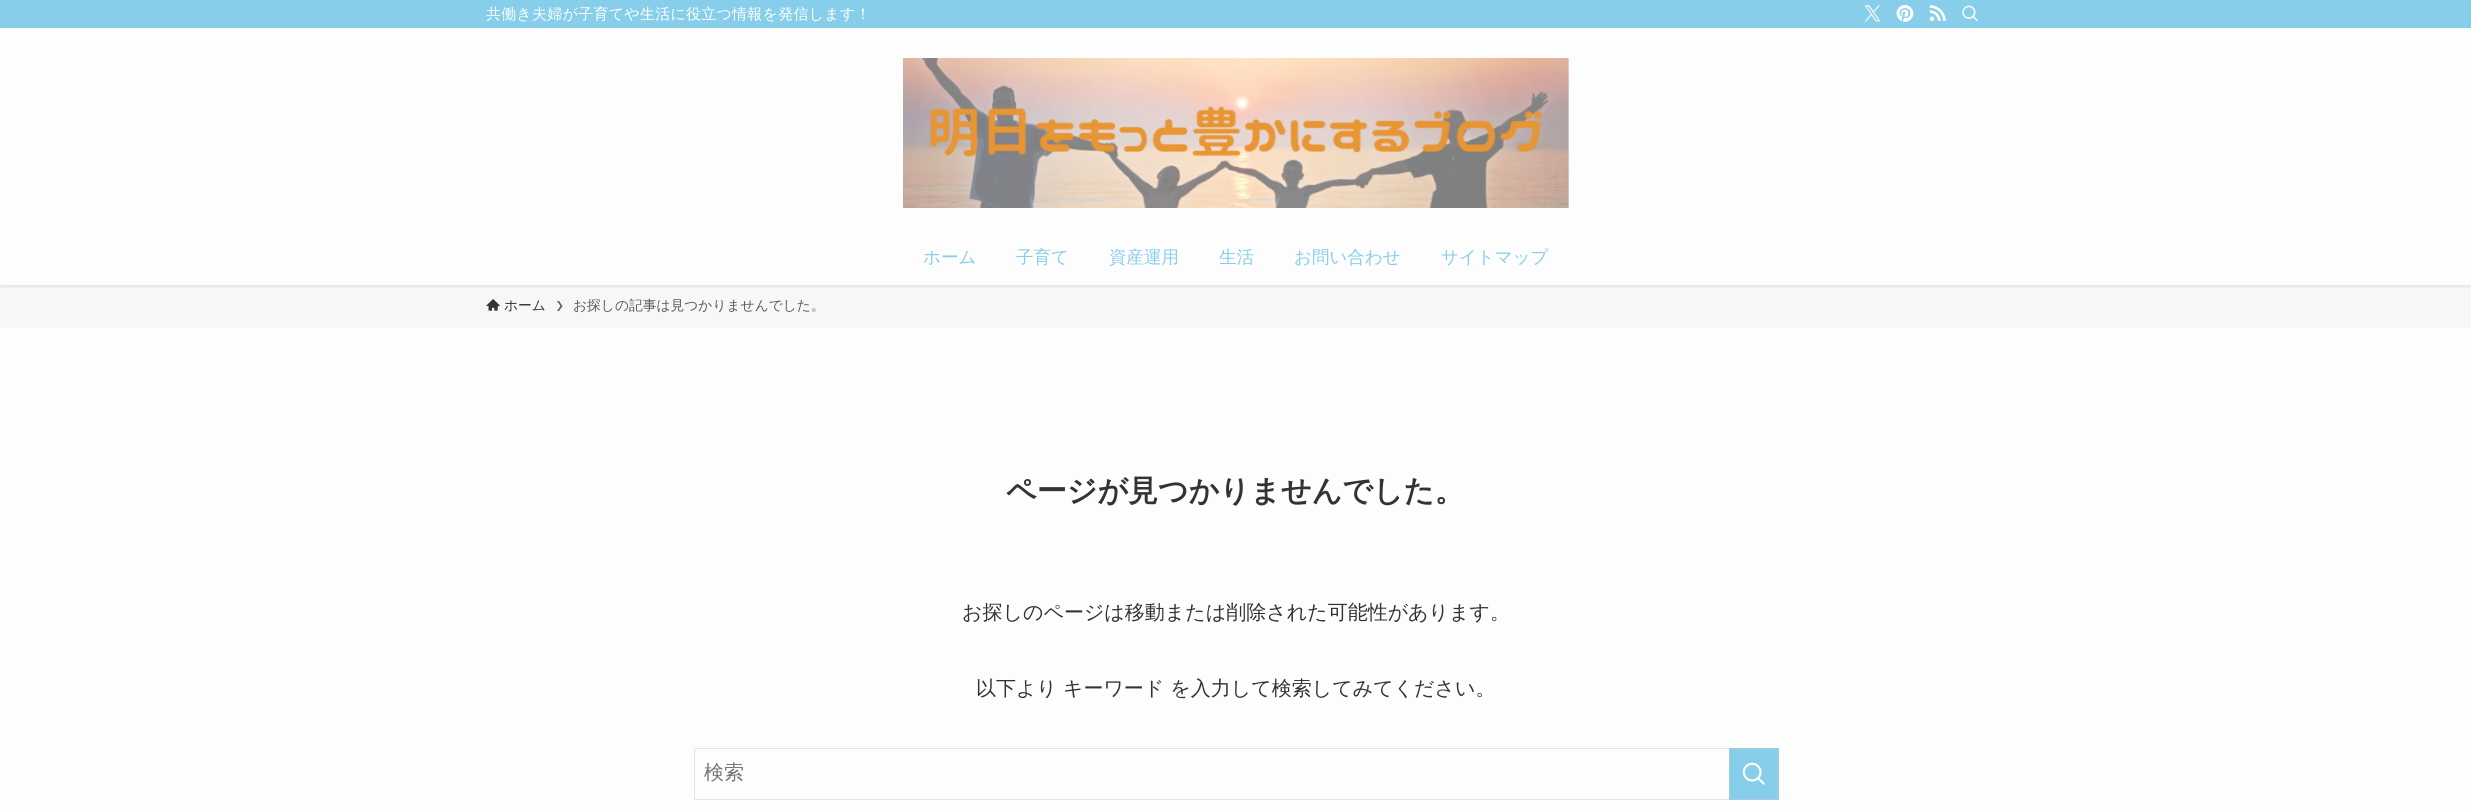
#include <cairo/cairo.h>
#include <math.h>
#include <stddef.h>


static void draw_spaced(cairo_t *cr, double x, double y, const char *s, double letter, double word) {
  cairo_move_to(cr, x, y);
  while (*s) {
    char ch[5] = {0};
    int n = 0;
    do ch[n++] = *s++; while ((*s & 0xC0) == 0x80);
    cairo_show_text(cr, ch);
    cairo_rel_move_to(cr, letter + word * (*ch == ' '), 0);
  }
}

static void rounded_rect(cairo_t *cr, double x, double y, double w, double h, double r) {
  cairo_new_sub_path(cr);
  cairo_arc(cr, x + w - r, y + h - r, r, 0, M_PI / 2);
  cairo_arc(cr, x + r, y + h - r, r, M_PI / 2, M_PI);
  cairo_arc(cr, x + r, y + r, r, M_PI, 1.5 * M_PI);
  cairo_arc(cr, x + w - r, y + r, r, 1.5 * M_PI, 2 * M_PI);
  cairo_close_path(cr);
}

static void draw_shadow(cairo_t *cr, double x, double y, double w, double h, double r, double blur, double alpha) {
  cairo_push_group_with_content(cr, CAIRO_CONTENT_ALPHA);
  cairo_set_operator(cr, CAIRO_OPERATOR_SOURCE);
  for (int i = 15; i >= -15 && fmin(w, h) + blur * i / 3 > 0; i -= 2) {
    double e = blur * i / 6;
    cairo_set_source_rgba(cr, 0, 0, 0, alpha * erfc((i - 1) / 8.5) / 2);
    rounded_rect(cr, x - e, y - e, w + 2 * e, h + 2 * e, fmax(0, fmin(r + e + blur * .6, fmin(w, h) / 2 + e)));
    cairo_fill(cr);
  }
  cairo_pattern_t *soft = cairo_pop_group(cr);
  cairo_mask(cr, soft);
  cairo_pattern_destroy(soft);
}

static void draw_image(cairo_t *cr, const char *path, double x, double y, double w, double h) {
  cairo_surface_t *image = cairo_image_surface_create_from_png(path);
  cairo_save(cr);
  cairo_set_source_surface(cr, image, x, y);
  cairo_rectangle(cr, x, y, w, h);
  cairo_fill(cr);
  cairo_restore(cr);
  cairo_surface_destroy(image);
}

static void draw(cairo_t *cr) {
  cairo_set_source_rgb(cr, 253 / 255.0, 253 / 255.0, 253 / 255.0);
  cairo_paint(cr);
  cairo_set_source_rgb(cr, 247 / 255.0, 247 / 255.0, 247 / 255.0);
  cairo_rectangle(cr, 0, 285, 2471, 43);
  cairo_fill(cr);
  cairo_save(cr);
  cairo_rectangle(cr, 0, 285, 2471, 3);
  cairo_clip(cr);
  cairo_set_source_rgb(cr, 0, 0, 0);
  draw_shadow(cr, 0, 1, 2471, 285, 0, 2.5, 0.12);
  cairo_restore(cr);
  cairo_set_source_rgb(cr, 135 / 255.0, 206 / 255.0, 235 / 255.0);
  cairo_rectangle(cr, 0, 0, 2471, 28);
  cairo_fill(cr);
  draw_image(cr, "images/1.png", 1864, 5, 17, 17);
  draw_image(cr, "images/2.png", 1896, 5, 18, 17);
  draw_image(cr, "images/3.png", 1929, 5, 17, 16);
  draw_image(cr, "images/4.png", 1962, 5, 16, 16);
  draw_image(cr, "images/5.png", 903, 58, 666, 150);
  draw_image(cr, "images/6.png", 486, 299, 14, 12);
  cairo_set_source_rgb(cr, 90 / 255.0, 90 / 255.0, 90 / 255.0);
  cairo_new_path(cr);
  cairo_move_to(cr, 559, 301);
  cairo_line_to(cr, 557, 301);
  cairo_line_to(cr, 560.5, 306);
  cairo_line_to(cr, 557, 311);
  cairo_line_to(cr, 559, 311);
  cairo_line_to(cr, 562.5, 306);
  cairo_close_path(cr);
  cairo_fill(cr);
  cairo_rectangle(cr, 694.5, 748.5, 1084, 51);
  cairo_set_source_rgb(cr, 227 / 255.0, 227 / 255.0, 227 / 255.0);
  cairo_set_line_width(cr, 1);
  cairo_stroke(cr);
  cairo_set_source_rgb(cr, 135 / 255.0, 206 / 255.0, 235 / 255.0);
  cairo_rectangle(cr, 1729.5, 748.5, 49, 51);
  cairo_fill_preserve(cr);
  cairo_set_source_rgb(cr, 167 / 255.0, 203 / 255.0, 217 / 255.0);
  cairo_stroke(cr);
  draw_image(cr, "images/7.png", 1742, 762, 23, 23);
  cairo_select_font_face(cr, "WenQuanYi Zen Hei Medium", CAIRO_FONT_SLANT_NORMAL, CAIRO_FONT_WEIGHT_NORMAL);
  cairo_set_font_size(cr, 15);
  cairo_set_source_rgb(cr, 1, 1, 1);
  draw_spaced(cr, 486, 19, "共働き夫婦が子育てや生活に役立つ情報を発信します！", 0.25, 0);
  cairo_set_font_size(cr, 17.5);
  cairo_set_source_rgb(cr, 135 / 255.0, 206 / 255.0, 235 / 255.0);
  cairo_move_to(cr, 923, 263);
  cairo_show_text(cr, "ホーム");
  cairo_move_to(cr, 1016, 263);
  cairo_show_text(cr, "子育て");
  cairo_move_to(cr, 1109, 263);
  cairo_show_text(cr, "資産運用");
  cairo_move_to(cr, 1219, 263);
  cairo_show_text(cr, "生活");
  cairo_move_to(cr, 1294, 263);
  cairo_show_text(cr, "お問い合わせ");
  cairo_move_to(cr, 1441, 263);
  cairo_show_text(cr, "サイトマップ");
  cairo_set_font_size(cr, 13.75);
  cairo_set_source_rgb(cr, 51 / 255.0, 51 / 255.0, 51 / 255.0);
  cairo_move_to(cr, 504, 310);
  cairo_show_text(cr, "ホーム");
  cairo_set_source_rgb(cr, 90 / 255.0, 90 / 255.0, 90 / 255.0);
  cairo_move_to(cr, 573, 310);
  cairo_show_text(cr, "お探しの記事は見つかりませんでした。");
  cairo_select_font_face(cr, "WenQuanYi Zen Hei", CAIRO_FONT_SLANT_NORMAL, CAIRO_FONT_WEIGHT_BOLD);
  cairo_set_font_size(cr, 30);
  cairo_set_source_rgb(cr, 51 / 255.0, 51 / 255.0, 51 / 255.0);
  cairo_move_to(cr, 1006, 501);
  cairo_show_text(cr, "ページが見つかりませんでした。");
  cairo_select_font_face(cr, "WenQuanYi Zen Hei Medium", CAIRO_FONT_SLANT_NORMAL, CAIRO_FONT_WEIGHT_NORMAL);
  cairo_set_font_size(cr, 20);
  cairo_move_to(cr, 962, 619);
  cairo_show_text(cr, "お探しのページは移動または削除された可能性があります。");
  cairo_move_to(cr, 976, 695);
  cairo_show_text(cr, "以下より キーワード を入力して検索してみてください。");
  cairo_set_source_rgb(cr, 117 / 255.0, 117 / 255.0, 117 / 255.0);
  cairo_move_to(cr, 704, 779);
  cairo_show_text(cr, "検索");
}

int main(void) {
  cairo_surface_t *surface = cairo_image_surface_create(CAIRO_FORMAT_RGB24, 2471, 810);
  cairo_t *cr = cairo_create(surface);
  cairo_font_options_t *options = cairo_font_options_create();
  cairo_font_options_set_hint_metrics(options, CAIRO_HINT_METRICS_OFF);
  cairo_font_options_set_hint_style(options, CAIRO_HINT_STYLE_NONE);
  cairo_set_font_options(cr, options);
  cairo_set_miter_limit(cr, 4);
  draw(cr);
  cairo_surface_write_to_png(surface, "out.png");
  cairo_font_options_destroy(options);
  cairo_destroy(cr);
  cairo_surface_destroy(surface);
  return 0;
}
